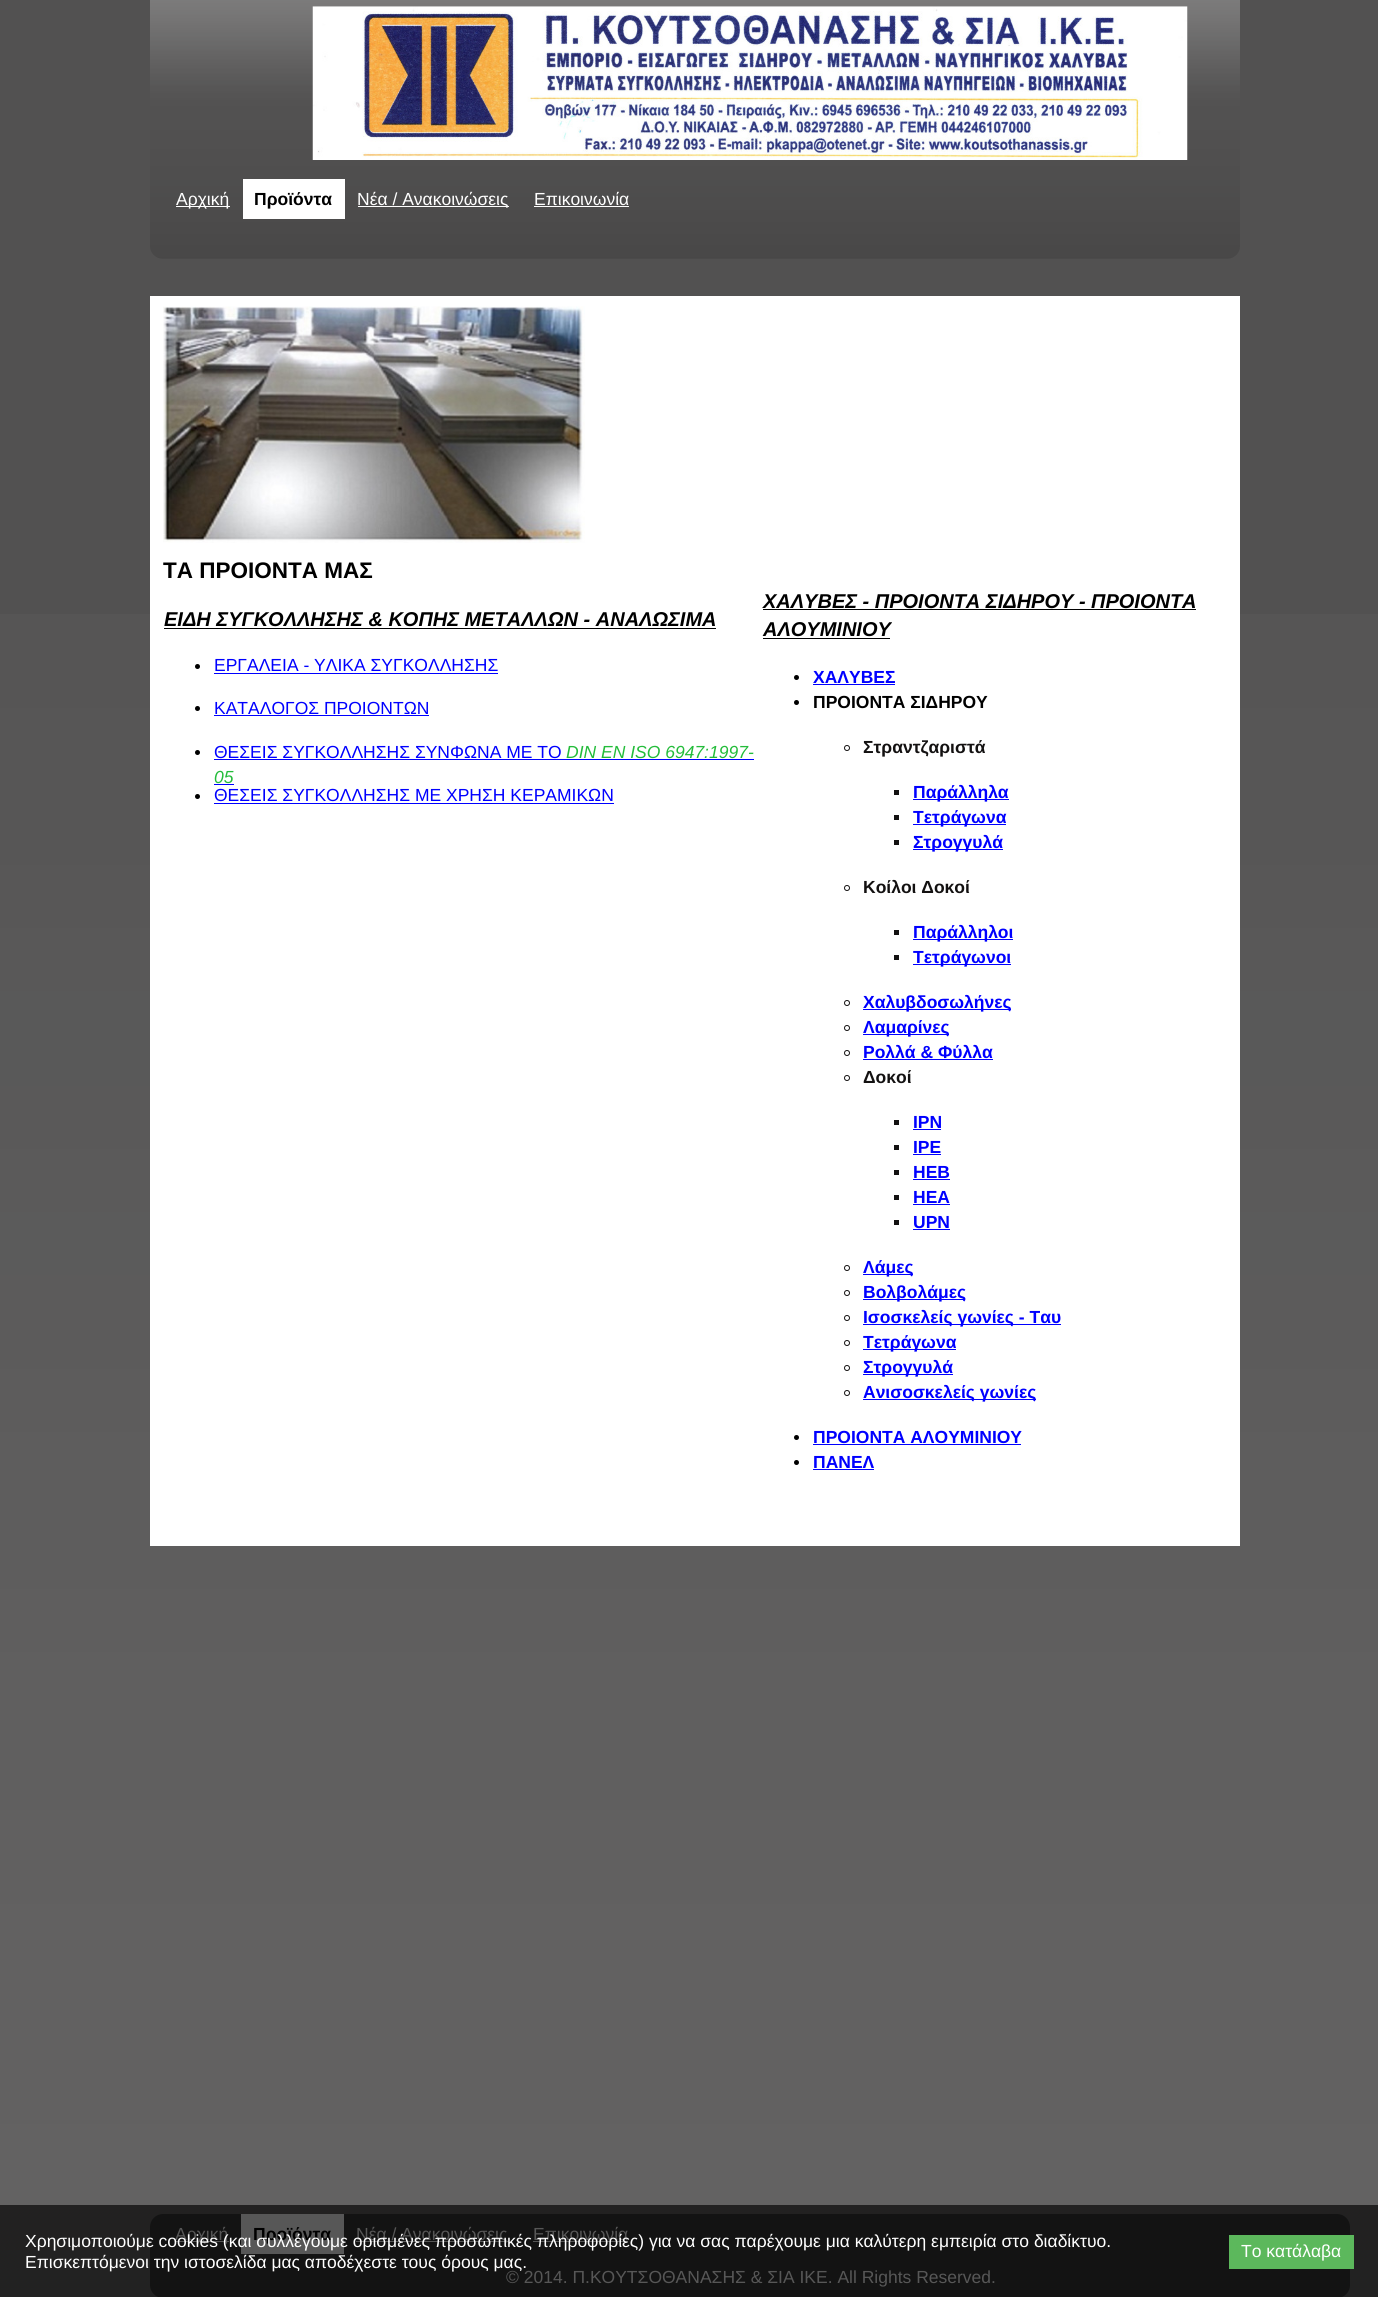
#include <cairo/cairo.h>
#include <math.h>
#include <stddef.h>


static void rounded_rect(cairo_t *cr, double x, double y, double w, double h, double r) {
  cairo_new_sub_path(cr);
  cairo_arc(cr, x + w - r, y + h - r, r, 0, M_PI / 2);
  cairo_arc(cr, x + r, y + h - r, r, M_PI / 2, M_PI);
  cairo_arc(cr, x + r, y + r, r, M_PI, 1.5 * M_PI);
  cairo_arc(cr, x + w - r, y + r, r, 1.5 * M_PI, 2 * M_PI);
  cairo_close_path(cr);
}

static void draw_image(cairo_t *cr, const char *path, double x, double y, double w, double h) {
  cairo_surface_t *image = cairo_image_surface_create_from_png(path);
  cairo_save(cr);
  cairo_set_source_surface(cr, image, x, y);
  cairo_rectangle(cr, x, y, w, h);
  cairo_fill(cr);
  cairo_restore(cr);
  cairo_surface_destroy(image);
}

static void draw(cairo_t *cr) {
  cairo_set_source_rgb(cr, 82 / 255.0, 81 / 255.0, 81 / 255.0);
  cairo_paint(cr);
  draw_image(cr, "images/1.png", 150, 0, 1090, 259);
  draw_image(cr, "images/2.png", 312, 6, 876, 154);
  cairo_set_source_rgb(cr, 1, 1, 1);
  cairo_rectangle(cr, 176, 206, 54, 1);
  cairo_fill(cr);
  cairo_rectangle(cr, 243, 179, 102, 40);
  cairo_fill(cr);
  cairo_rectangle(cr, 358, 206, 151, 1);
  cairo_fill(cr);
  cairo_rectangle(cr, 534, 206, 95, 1);
  cairo_fill(cr);
  draw_image(cr, "images/4.png", 0, 614, 1378, 1683);
  cairo_rectangle(cr, 150, 296, 1090, 1250);
  cairo_fill(cr);
  draw_image(cr, "images/3.png", 163, 306, 422, 237);
  cairo_set_source_rgb(cr, 0, 0, 0);
  cairo_rectangle(cr, 164, 628, 552, 1);
  cairo_fill(cr);
  cairo_rectangle(cr, 763, 609, 433, 1);
  cairo_fill(cr);
  cairo_rectangle(cr, 763, 638, 127, 1);
  cairo_fill(cr);
  cairo_arc(cr, 197.5, 666.5, 2.5, 0, 2 * M_PI);
  cairo_fill(cr);
  cairo_set_source_rgb(cr, 0, 0, 1);
  cairo_rectangle(cr, 214, 673, 284, 1);
  cairo_fill(cr);
  cairo_set_source_rgb(cr, 0, 0, 0);
  cairo_arc(cr, 197.5, 708.5, 2.5, 0, 2 * M_PI);
  cairo_fill(cr);
  cairo_set_source_rgb(cr, 0, 0, 1);
  cairo_rectangle(cr, 214, 715, 215, 1);
  cairo_fill(cr);
  cairo_set_source_rgb(cr, 0, 0, 0);
  cairo_arc(cr, 796.5, 677.5, 2.5, 0, 2 * M_PI);
  cairo_fill(cr);
  cairo_set_source_rgb(cr, 0, 0, 1);
  cairo_rectangle(cr, 813, 684, 82, 1);
  cairo_fill(cr);
  cairo_set_source_rgb(cr, 0, 0, 0);
  cairo_arc(cr, 796.5, 702.5, 2.5, 0, 2 * M_PI);
  cairo_fill(cr);
  cairo_arc(cr, 847, 748, 2.5, 0, 2 * M_PI);
  cairo_set_source_rgb(cr, 19 / 255.0, 17 / 255.0, 17 / 255.0);
  cairo_set_line_width(cr, 1);
  cairo_stroke(cr);
  cairo_rectangle(cr, 894, 790, 5, 5);
  cairo_fill(cr);
  cairo_set_source_rgb(cr, 0, 0, 1);
  cairo_rectangle(cr, 913, 799, 96, 1);
  cairo_fill(cr);
  cairo_set_source_rgb(cr, 19 / 255.0, 17 / 255.0, 17 / 255.0);
  cairo_rectangle(cr, 894, 815, 5, 5);
  cairo_fill(cr);
  cairo_set_source_rgb(cr, 0, 0, 1);
  cairo_rectangle(cr, 913, 824, 93, 1);
  cairo_fill(cr);
  cairo_set_source_rgb(cr, 19 / 255.0, 17 / 255.0, 17 / 255.0);
  cairo_rectangle(cr, 894, 840, 5, 5);
  cairo_fill(cr);
  cairo_set_source_rgb(cr, 0, 0, 1);
  cairo_rectangle(cr, 913, 849, 90, 1);
  cairo_fill(cr);
  cairo_arc(cr, 847, 888, 2.5, 0, 2 * M_PI);
  cairo_set_source_rgb(cr, 19 / 255.0, 17 / 255.0, 17 / 255.0);
  cairo_stroke(cr);
  cairo_rectangle(cr, 894, 930, 5, 5);
  cairo_fill(cr);
  cairo_set_source_rgb(cr, 0, 0, 1);
  cairo_rectangle(cr, 913, 939, 100, 1);
  cairo_fill(cr);
  cairo_set_source_rgb(cr, 19 / 255.0, 17 / 255.0, 17 / 255.0);
  cairo_rectangle(cr, 894, 955, 5, 5);
  cairo_fill(cr);
  cairo_set_source_rgb(cr, 0, 0, 1);
  cairo_rectangle(cr, 913, 964, 98, 1);
  cairo_fill(cr);
  cairo_arc(cr, 847, 1003, 2.5, 0, 2 * M_PI);
  cairo_set_source_rgb(cr, 19 / 255.0, 17 / 255.0, 17 / 255.0);
  cairo_stroke(cr);
  cairo_set_source_rgb(cr, 0, 0, 1);
  cairo_rectangle(cr, 863, 1009, 148, 1);
  cairo_fill(cr);
  cairo_arc(cr, 847, 1028, 2.5, 0, 2 * M_PI);
  cairo_set_source_rgb(cr, 19 / 255.0, 17 / 255.0, 17 / 255.0);
  cairo_stroke(cr);
  cairo_set_source_rgb(cr, 0, 0, 1);
  cairo_rectangle(cr, 863, 1034, 86, 1);
  cairo_fill(cr);
  cairo_arc(cr, 847, 1053, 2.5, 0, 2 * M_PI);
  cairo_set_source_rgb(cr, 19 / 255.0, 17 / 255.0, 17 / 255.0);
  cairo_stroke(cr);
  cairo_set_source_rgb(cr, 0, 0, 1);
  cairo_rectangle(cr, 863, 1059, 130, 1);
  cairo_fill(cr);
  cairo_arc(cr, 847, 1078, 2.5, 0, 2 * M_PI);
  cairo_set_source_rgb(cr, 19 / 255.0, 17 / 255.0, 17 / 255.0);
  cairo_stroke(cr);
  cairo_rectangle(cr, 894, 1120, 5, 5);
  cairo_fill(cr);
  cairo_set_source_rgb(cr, 0, 0, 1);
  cairo_rectangle(cr, 913, 1129, 28, 1);
  cairo_fill(cr);
  cairo_set_source_rgb(cr, 19 / 255.0, 17 / 255.0, 17 / 255.0);
  cairo_rectangle(cr, 894, 1145, 5, 5);
  cairo_fill(cr);
  cairo_set_source_rgb(cr, 0, 0, 1);
  cairo_rectangle(cr, 913, 1154, 28, 1);
  cairo_fill(cr);
  cairo_set_source_rgb(cr, 19 / 255.0, 17 / 255.0, 17 / 255.0);
  cairo_rectangle(cr, 894, 1170, 5, 5);
  cairo_fill(cr);
  cairo_set_source_rgb(cr, 0, 0, 1);
  cairo_rectangle(cr, 913, 1179, 37, 1);
  cairo_fill(cr);
  cairo_set_source_rgb(cr, 19 / 255.0, 17 / 255.0, 17 / 255.0);
  cairo_rectangle(cr, 894, 1195, 5, 5);
  cairo_fill(cr);
  cairo_set_source_rgb(cr, 0, 0, 1);
  cairo_rectangle(cr, 913, 1204, 37, 1);
  cairo_fill(cr);
  cairo_set_source_rgb(cr, 19 / 255.0, 17 / 255.0, 17 / 255.0);
  cairo_rectangle(cr, 894, 1220, 5, 5);
  cairo_fill(cr);
  cairo_set_source_rgb(cr, 0, 0, 1);
  cairo_rectangle(cr, 913, 1229, 37, 1);
  cairo_fill(cr);
  cairo_arc(cr, 847, 1268, 2.5, 0, 2 * M_PI);
  cairo_set_source_rgb(cr, 19 / 255.0, 17 / 255.0, 17 / 255.0);
  cairo_stroke(cr);
  cairo_set_source_rgb(cr, 0, 0, 1);
  cairo_rectangle(cr, 863, 1274, 50, 1);
  cairo_fill(cr);
  cairo_arc(cr, 847, 1293, 2.5, 0, 2 * M_PI);
  cairo_set_source_rgb(cr, 19 / 255.0, 17 / 255.0, 17 / 255.0);
  cairo_stroke(cr);
  cairo_set_source_rgb(cr, 0, 0, 1);
  cairo_rectangle(cr, 863, 1299, 102, 1);
  cairo_fill(cr);
  cairo_arc(cr, 847, 1318, 2.5, 0, 2 * M_PI);
  cairo_set_source_rgb(cr, 19 / 255.0, 17 / 255.0, 17 / 255.0);
  cairo_stroke(cr);
  cairo_set_source_rgb(cr, 0, 0, 1);
  cairo_rectangle(cr, 863, 1324, 198, 1);
  cairo_fill(cr);
  cairo_arc(cr, 847, 1343, 2.5, 0, 2 * M_PI);
  cairo_set_source_rgb(cr, 19 / 255.0, 17 / 255.0, 17 / 255.0);
  cairo_stroke(cr);
  cairo_set_source_rgb(cr, 0, 0, 1);
  cairo_rectangle(cr, 863, 1349, 93, 1);
  cairo_fill(cr);
  cairo_arc(cr, 847, 1368, 2.5, 0, 2 * M_PI);
  cairo_set_source_rgb(cr, 19 / 255.0, 17 / 255.0, 17 / 255.0);
  cairo_stroke(cr);
  cairo_set_source_rgb(cr, 0, 0, 1);
  cairo_rectangle(cr, 863, 1374, 90, 1);
  cairo_fill(cr);
  cairo_arc(cr, 847, 1393, 2.5, 0, 2 * M_PI);
  cairo_set_source_rgb(cr, 19 / 255.0, 17 / 255.0, 17 / 255.0);
  cairo_stroke(cr);
  cairo_set_source_rgb(cr, 0, 0, 1);
  cairo_rectangle(cr, 863, 1399, 173, 1);
  cairo_fill(cr);
  cairo_set_source_rgb(cr, 0, 0, 0);
  cairo_arc(cr, 796.5, 1437.5, 2.5, 0, 2 * M_PI);
  cairo_fill(cr);
  cairo_set_source_rgb(cr, 0, 0, 1);
  cairo_rectangle(cr, 813, 1444, 208, 1);
  cairo_fill(cr);
  cairo_set_source_rgb(cr, 0, 0, 0);
  cairo_arc(cr, 796.5, 1462.5, 2.5, 0, 2 * M_PI);
  cairo_fill(cr);
  cairo_set_source_rgb(cr, 0, 0, 1);
  cairo_rectangle(cr, 813, 1469, 61, 1);
  cairo_fill(cr);
  cairo_set_source_rgb(cr, 0, 0, 0);
  cairo_arc(cr, 197.5, 752.5, 2.5, 0, 2 * M_PI);
  cairo_fill(cr);
  cairo_set_source_rgb(cr, 0, 0, 1);
  cairo_rectangle(cr, 214, 759, 540, 1);
  cairo_fill(cr);
  cairo_rectangle(cr, 214, 784, 20, 1);
  cairo_fill(cr);
  cairo_set_source_rgb(cr, 0, 0, 0);
  cairo_arc(cr, 197.5, 796.5, 2.5, 0, 2 * M_PI);
  cairo_fill(cr);
  cairo_set_source_rgb(cr, 0, 0, 1);
  cairo_rectangle(cr, 214, 803, 400, 1);
  cairo_fill(cr);
  cairo_set_source_rgb(cr, 55 / 255.0, 55 / 255.0, 55 / 255.0);
  rounded_rect(cr, 150, 2214, 1200, 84, 13);
  cairo_fill(cr);
  cairo_set_source_rgb(cr, 1, 1, 1);
  cairo_rectangle(cr, 175, 2241, 54, 1);
  cairo_fill(cr);
  cairo_rectangle(cr, 241, 2214, 103, 40);
  cairo_fill(cr);
  cairo_rectangle(cr, 356, 2241, 152, 1);
  cairo_fill(cr);
  cairo_rectangle(cr, 533, 2241, 95, 1);
  cairo_fill(cr);
  cairo_select_font_face(cr, "Liberation Sans", CAIRO_FONT_SLANT_NORMAL, CAIRO_FONT_WEIGHT_NORMAL);
  cairo_set_font_size(cr, 17.5);
  cairo_move_to(cr, 176, 205);
  cairo_show_text(cr, "Αρχική");
  cairo_select_font_face(cr, "Liberation Sans", CAIRO_FONT_SLANT_NORMAL, CAIRO_FONT_WEIGHT_BOLD);
  cairo_set_source_rgb(cr, 0, 0, 0);
  cairo_move_to(cr, 254, 205);
  cairo_show_text(cr, "Προϊόντα");
  cairo_select_font_face(cr, "Liberation Sans", CAIRO_FONT_SLANT_NORMAL, CAIRO_FONT_WEIGHT_NORMAL);
  cairo_set_source_rgb(cr, 1, 1, 1);
  cairo_move_to(cr, 357, 205);
  cairo_show_text(cr, "Νέα / Ανακοινώσεις");
  cairo_move_to(cr, 534, 205);
  cairo_show_text(cr, "Επικοινωνία");
  cairo_select_font_face(cr, "Liberation Sans", CAIRO_FONT_SLANT_NORMAL, CAIRO_FONT_WEIGHT_BOLD);
  cairo_set_font_size(cr, 22.5);
  cairo_set_source_rgb(cr, 0, 0, 0);
  cairo_move_to(cr, 163, 578);
  cairo_show_text(cr, "ΤΑ ΠΡΟΙΟΝΤΑ ΜΑΣ");
  cairo_select_font_face(cr, "Liberation Sans", CAIRO_FONT_SLANT_ITALIC, CAIRO_FONT_WEIGHT_BOLD);
  cairo_set_font_size(cr, 20);
  cairo_move_to(cr, 164, 626);
  cairo_show_text(cr, "ΕΙΔΗ ΣΥΓΚΟΛΛΗΣΗΣ & ΚΟΠΗΣ ΜΕΤΑΛΛΩΝ - ΑΝΑΛΩΣΙΜΑ");
  cairo_move_to(cr, 763, 608);
  cairo_show_text(cr, "ΧΑΛΥΒΕΣ - ΠΡΟΙΟΝΤΑ ΣΙΔΗΡΟΥ - ΠΡΟΙΟΝΤΑ");
  cairo_move_to(cr, 763, 636);
  cairo_show_text(cr, "ΑΛΟΥΜΙΝΙΟΥ");
  cairo_select_font_face(cr, "Liberation Sans", CAIRO_FONT_SLANT_NORMAL, CAIRO_FONT_WEIGHT_NORMAL);
  cairo_set_font_size(cr, 17.5);
  cairo_set_source_rgb(cr, 0, 0, 1);
  cairo_move_to(cr, 214, 671);
  cairo_show_text(cr, "ΕΡΓΑΛΕΙΑ - ΥΛΙΚΑ ΣΥΓΚΟΛΛΗΣΗΣ");
  cairo_move_to(cr, 214, 714);
  cairo_show_text(cr, "ΚΑΤΑΛΟΓΟΣ ΠΡΟΙΟΝΤΩΝ");
  cairo_select_font_face(cr, "Liberation Sans", CAIRO_FONT_SLANT_NORMAL, CAIRO_FONT_WEIGHT_BOLD);
  cairo_move_to(cr, 813, 683);
  cairo_show_text(cr, "ΧΑΛΥΒΕΣ");
  cairo_set_source_rgb(cr, 0, 0, 0);
  cairo_move_to(cr, 813, 708);
  cairo_show_text(cr, "ΠΡΟΙΟΝΤΑ ΣΙΔΗΡΟΥ");
  cairo_set_source_rgb(cr, 19 / 255.0, 17 / 255.0, 17 / 255.0);
  cairo_move_to(cr, 863, 753);
  cairo_show_text(cr, "Στραντζαριστά");
  cairo_set_source_rgb(cr, 0, 0, 1);
  cairo_move_to(cr, 913, 798);
  cairo_show_text(cr, "Παράλληλα");
  cairo_move_to(cr, 913, 823);
  cairo_show_text(cr, "Τετράγωνα");
  cairo_move_to(cr, 913, 848);
  cairo_show_text(cr, "Στρογγυλά");
  cairo_set_source_rgb(cr, 19 / 255.0, 17 / 255.0, 17 / 255.0);
  cairo_move_to(cr, 863, 893);
  cairo_show_text(cr, "Κοίλοι Δοκοί");
  cairo_set_source_rgb(cr, 0, 0, 1);
  cairo_move_to(cr, 913, 938);
  cairo_show_text(cr, "Παράλληλοι");
  cairo_move_to(cr, 913, 963);
  cairo_show_text(cr, "Τετράγωνοι");
  cairo_move_to(cr, 863, 1008);
  cairo_show_text(cr, "Χαλυβδοσωλήνες");
  cairo_move_to(cr, 863, 1033);
  cairo_show_text(cr, "Λαμαρίνες");
  cairo_move_to(cr, 863, 1058);
  cairo_show_text(cr, "Ρολλά & Φύλλα");
  cairo_set_source_rgb(cr, 19 / 255.0, 17 / 255.0, 17 / 255.0);
  cairo_move_to(cr, 863, 1083);
  cairo_show_text(cr, "Δοκοί");
  cairo_set_source_rgb(cr, 0, 0, 1);
  cairo_move_to(cr, 913, 1128);
  cairo_show_text(cr, "IPN");
  cairo_move_to(cr, 913, 1153);
  cairo_show_text(cr, "IPE");
  cairo_move_to(cr, 913, 1178);
  cairo_show_text(cr, "HEB");
  cairo_move_to(cr, 913, 1203);
  cairo_show_text(cr, "HEA");
  cairo_move_to(cr, 913, 1228);
  cairo_show_text(cr, "UPN");
  cairo_move_to(cr, 863, 1273);
  cairo_show_text(cr, "Λάμες");
  cairo_move_to(cr, 863, 1298);
  cairo_show_text(cr, "Βολβολάμες");
  cairo_move_to(cr, 863, 1323);
  cairo_show_text(cr, "Ισοσκελείς γωνίες - Ταυ");
  cairo_move_to(cr, 863, 1348);
  cairo_show_text(cr, "Τετράγωνα");
  cairo_move_to(cr, 863, 1373);
  cairo_show_text(cr, "Στρογγυλά");
  cairo_move_to(cr, 863, 1398);
  cairo_show_text(cr, "Ανισοσκελείς γωνίες");
  cairo_move_to(cr, 813, 1443);
  cairo_show_text(cr, "ΠΡΟΙΟΝΤΑ ΑΛΟΥΜΙΝΙΟΥ");
  cairo_move_to(cr, 813, 1468);
  cairo_show_text(cr, "ΠΑΝΕΛ");
  cairo_select_font_face(cr, "Liberation Sans", CAIRO_FONT_SLANT_NORMAL, CAIRO_FONT_WEIGHT_NORMAL);
  cairo_move_to(cr, 214, 758);
  cairo_show_text(cr, "ΘΕΣΕΙΣ ΣΥΓΚΟΛΛΗΣΗΣ ΣΥΝΦΩΝΑ ΜΕ ΤΟ");
  cairo_select_font_face(cr, "Liberation Sans", CAIRO_FONT_SLANT_ITALIC, CAIRO_FONT_WEIGHT_NORMAL);
  cairo_set_source_rgb(cr, 36 / 255.0, 188 / 255.0, 59 / 255.0);
  cairo_move_to(cr, 566, 758);
  cairo_show_text(cr, "DIN EN ISO 6947:1997-");
  cairo_move_to(cr, 214, 783);
  cairo_show_text(cr, "05");
  cairo_select_font_face(cr, "Liberation Sans", CAIRO_FONT_SLANT_NORMAL, CAIRO_FONT_WEIGHT_NORMAL);
  cairo_set_source_rgb(cr, 0, 0, 1);
  cairo_move_to(cr, 214, 801);
  cairo_show_text(cr, "ΘΕΣΕΙΣ ΣΥΓΚΟΛΛΗΣΗΣ ΜΕ ΧΡΗΣΗ ΚΕΡΑΜΙΚΩΝ");
  cairo_set_source_rgb(cr, 1, 1, 1);
  cairo_move_to(cr, 175, 2240);
  cairo_show_text(cr, "Αρχική");
  cairo_select_font_face(cr, "Liberation Sans", CAIRO_FONT_SLANT_NORMAL, CAIRO_FONT_WEIGHT_BOLD);
  cairo_set_source_rgb(cr, 0, 0, 0);
  cairo_move_to(cr, 253, 2240);
  cairo_show_text(cr, "Προϊόντα");
  cairo_select_font_face(cr, "Liberation Sans", CAIRO_FONT_SLANT_NORMAL, CAIRO_FONT_WEIGHT_NORMAL);
  cairo_set_source_rgb(cr, 1, 1, 1);
  cairo_move_to(cr, 356, 2240);
  cairo_show_text(cr, "Νέα / Ανακοινώσεις");
  cairo_move_to(cr, 533, 2240);
  cairo_show_text(cr, "Επικοινωνία");
  cairo_move_to(cr, 506, 2283);
  cairo_show_text(cr, "© 2014. Π.ΚΟΥΤΣΟΘΑΝΑΣΗΣ & ΣΙΑ ΙΚΕ. All Rights Reserved.");
  cairo_set_source_rgba(cr, 0, 0, 0, 0.66);
  cairo_rectangle(cr, 0, 2205, 1378, 92);
  cairo_fill(cr);
  cairo_set_source_rgb(cr, 1, 1, 1);
  cairo_move_to(cr, 25, 2247);
  cairo_show_text(cr, "Χρησιμοποιούμε cookies (και συλλέγουμε ορισμένες προσωπικές πληροφορίες) για να σας παρέχουμε μια καλύτερη εμπειρία στο διαδίκτυο.");
  cairo_move_to(cr, 25, 2268);
  cairo_show_text(cr, "Επισκεπτόμενοι την ιστοσελίδα μας αποδέχεστε τους όρους μας.");
  cairo_set_source_rgb(cr, 92 / 255.0, 184 / 255.0, 92 / 255.0);
  cairo_rectangle(cr, 1229, 2235, 125, 34);
  cairo_fill(cr);
  cairo_set_source_rgb(cr, 1, 1, 1);
  cairo_move_to(cr, 1241, 2257);
  cairo_show_text(cr, "Το κατάλαβα");
}

int main(void) {
  cairo_surface_t *surface = cairo_image_surface_create(CAIRO_FORMAT_RGB24, 1378, 2297);
  cairo_t *cr = cairo_create(surface);
  cairo_font_options_t *options = cairo_font_options_create();
  cairo_font_options_set_hint_metrics(options, CAIRO_HINT_METRICS_OFF);
  cairo_font_options_set_hint_style(options, CAIRO_HINT_STYLE_NONE);
  cairo_set_font_options(cr, options);
  cairo_set_miter_limit(cr, 4);
  draw(cr);
  cairo_surface_write_to_png(surface, "out.png");
  cairo_font_options_destroy(options);
  cairo_destroy(cr);
  cairo_surface_destroy(surface);
  return 0;
}
